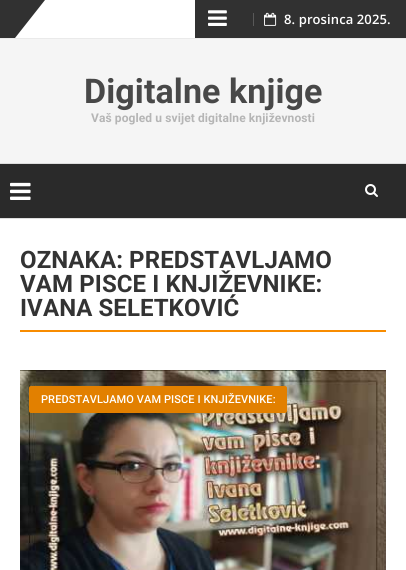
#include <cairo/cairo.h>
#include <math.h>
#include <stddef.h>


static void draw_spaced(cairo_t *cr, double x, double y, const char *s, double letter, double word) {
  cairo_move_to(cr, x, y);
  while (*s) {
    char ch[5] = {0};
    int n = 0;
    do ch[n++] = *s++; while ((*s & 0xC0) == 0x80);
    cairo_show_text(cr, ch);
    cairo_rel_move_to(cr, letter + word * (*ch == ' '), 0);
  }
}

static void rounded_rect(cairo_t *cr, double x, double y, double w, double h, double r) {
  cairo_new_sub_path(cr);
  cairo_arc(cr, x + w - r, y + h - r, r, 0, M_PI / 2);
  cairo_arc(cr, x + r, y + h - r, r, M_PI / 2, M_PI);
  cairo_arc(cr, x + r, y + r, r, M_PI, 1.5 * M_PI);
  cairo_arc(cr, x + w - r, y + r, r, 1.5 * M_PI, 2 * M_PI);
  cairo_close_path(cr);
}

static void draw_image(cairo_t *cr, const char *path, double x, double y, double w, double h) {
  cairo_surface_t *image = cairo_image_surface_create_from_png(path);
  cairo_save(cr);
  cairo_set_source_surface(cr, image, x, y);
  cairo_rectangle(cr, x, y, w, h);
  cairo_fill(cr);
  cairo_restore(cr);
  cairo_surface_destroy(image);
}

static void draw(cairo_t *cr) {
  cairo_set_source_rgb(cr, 1, 1, 1);
  cairo_paint(cr);
  cairo_set_source_rgb(cr, 234 / 255.0, 234 / 255.0, 234 / 255.0);
  cairo_rectangle(cr, 0, 38, 406, 1);
  cairo_fill(cr);
  cairo_set_source_rgb(cr, 49 / 255.0, 49 / 255.0, 49 / 255.0);
  cairo_new_path(cr);
  cairo_move_to(cr, 0, 0);
  cairo_line_to(cr, 45, 0);
  cairo_line_to(cr, 15, 38);
  cairo_line_to(cr, 0, 38);
  cairo_close_path(cr);
  cairo_fill(cr);
  cairo_rectangle(cr, 195, 0, 30, 38);
  cairo_fill(cr);
  cairo_new_path(cr);
  cairo_move_to(cr, 406, 38);
  cairo_line_to(cr, 195, 38);
  cairo_line_to(cr, 225, 0);
  cairo_line_to(cr, 406, 0);
  cairo_close_path(cr);
  cairo_fill(cr);
  draw_image(cr, "images/1.png", 208, 10, 19, 16);
  cairo_set_source_rgb(cr, 89 / 255.0, 89 / 255.0, 89 / 255.0);
  cairo_rectangle(cr, 253, 13, 1, 13);
  cairo_fill(cr);
  draw_image(cr, "images/2.png", 264, 12, 13, 14);
  cairo_set_source_rgb(cr, 245 / 255.0, 245 / 255.0, 245 / 255.0);
  cairo_rectangle(cr, 0, 39, 406, 124);
  cairo_fill(cr);
  cairo_set_source_rgb(cr, 42 / 255.0, 42 / 255.0, 42 / 255.0);
  cairo_rectangle(cr, 0, 164, 406, 54);
  cairo_fill(cr);
  cairo_set_source_rgb(cr, 221 / 255.0, 221 / 255.0, 221 / 255.0);
  cairo_rectangle(cr, 0, 163, 406, 1);
  cairo_fill(cr);
  cairo_rectangle(cr, 0, 218, 406, 1);
  cairo_fill(cr);
  draw_image(cr, "images/3.png", 10, 182, 21, 18);
  draw_image(cr, "images/4.png", 365, 184, 13, 13);
  cairo_set_source_rgb(cr, 248 / 255.0, 140 / 255.0, 0);
  cairo_rectangle(cr, 20, 330, 366, 2);
  cairo_fill(cr);
  draw_image(cr, "images/5.png", 20, 370, 366, 200);
  cairo_set_source_rgb(cr, 226 / 255.0, 128 / 255.0, 0);
  rounded_rect(cr, 29, 386, 258, 27, 2);
  cairo_fill(cr);
  cairo_select_font_face(cr, "Open Sans SemiBold", CAIRO_FONT_SLANT_NORMAL, CAIRO_FONT_WEIGHT_NORMAL);
  cairo_set_font_size(cr, 13);
  cairo_set_source_rgb(cr, 1, 1, 1);
  draw_spaced(cr, 284, 24, "8. prosinca 2025.", 0.1, 0);
  cairo_select_font_face(cr, "Roboto", CAIRO_FONT_SLANT_NORMAL, CAIRO_FONT_WEIGHT_BOLD);
  cairo_set_font_size(cr, 34);
  cairo_set_source_rgb(cr, 72 / 255.0, 72 / 255.0, 72 / 255.0);
  draw_spaced(cr, 84, 103, "Digitalne knjige", 0.1, 0);
  cairo_set_font_size(cr, 12);
  cairo_set_source_rgb(cr, 181 / 255.0, 181 / 255.0, 181 / 255.0);
  draw_spaced(cr, 91, 122, "Vaš pogled u svijet digitalne književnosti", 0.1, 0);
  cairo_set_font_size(cr, 24);
  cairo_set_source_rgb(cr, 51 / 255.0, 51 / 255.0, 51 / 255.0);
  draw_spaced(cr, 20, 268, "OZNAKA: PREDSTAVLJAMO", 0.1, 0);
  draw_spaced(cr, 20, 292, "VAM PISCE I KNJIŽEVNIKE:", 0.1, 0);
  draw_spaced(cr, 20, 316, "IVANA SELETKOVIĆ", 0.1, 0);
  cairo_select_font_face(cr, "Roboto Medium", CAIRO_FONT_SLANT_NORMAL, CAIRO_FONT_WEIGHT_NORMAL);
  cairo_set_font_size(cr, 11);
  cairo_set_source_rgb(cr, 1, 1, 1);
  draw_spaced(cr, 41, 403, "PREDSTAVLJAMO VAM PISCE I KNJIŽEVNIKE:", 0.1, 0);
}

int main(void) {
  cairo_surface_t *surface = cairo_image_surface_create(CAIRO_FORMAT_RGB24, 406, 570);
  cairo_t *cr = cairo_create(surface);
  cairo_font_options_t *options = cairo_font_options_create();
  cairo_font_options_set_hint_metrics(options, CAIRO_HINT_METRICS_OFF);
  cairo_font_options_set_hint_style(options, CAIRO_HINT_STYLE_NONE);
  cairo_set_font_options(cr, options);
  cairo_set_miter_limit(cr, 4);
  draw(cr);
  cairo_surface_write_to_png(surface, "out.png");
  cairo_font_options_destroy(options);
  cairo_destroy(cr);
  cairo_surface_destroy(surface);
  return 0;
}
